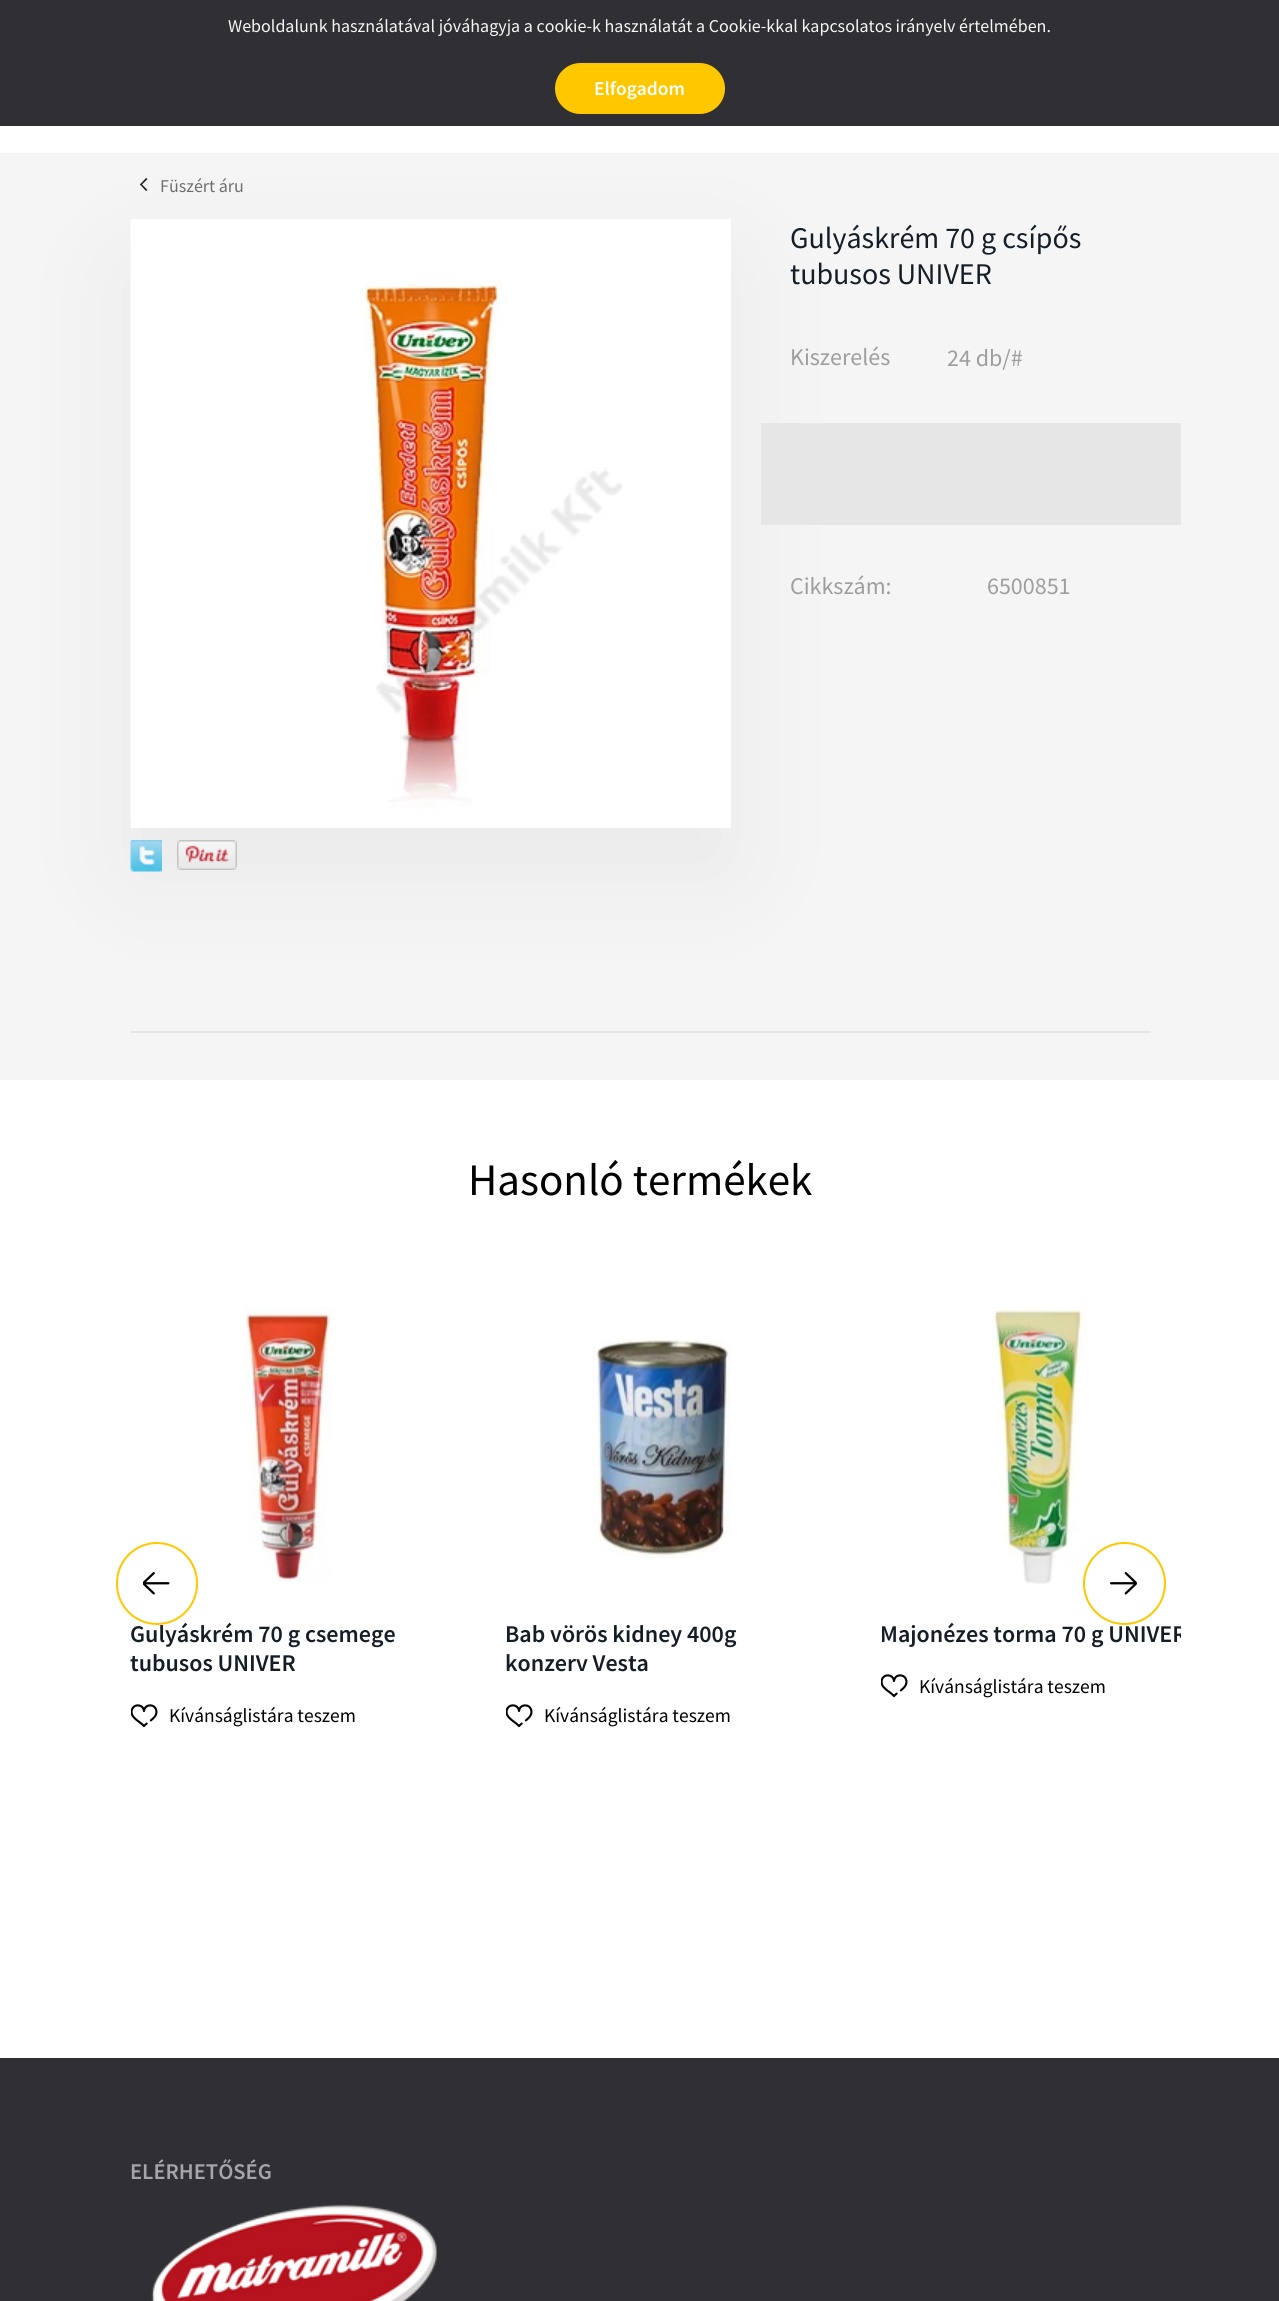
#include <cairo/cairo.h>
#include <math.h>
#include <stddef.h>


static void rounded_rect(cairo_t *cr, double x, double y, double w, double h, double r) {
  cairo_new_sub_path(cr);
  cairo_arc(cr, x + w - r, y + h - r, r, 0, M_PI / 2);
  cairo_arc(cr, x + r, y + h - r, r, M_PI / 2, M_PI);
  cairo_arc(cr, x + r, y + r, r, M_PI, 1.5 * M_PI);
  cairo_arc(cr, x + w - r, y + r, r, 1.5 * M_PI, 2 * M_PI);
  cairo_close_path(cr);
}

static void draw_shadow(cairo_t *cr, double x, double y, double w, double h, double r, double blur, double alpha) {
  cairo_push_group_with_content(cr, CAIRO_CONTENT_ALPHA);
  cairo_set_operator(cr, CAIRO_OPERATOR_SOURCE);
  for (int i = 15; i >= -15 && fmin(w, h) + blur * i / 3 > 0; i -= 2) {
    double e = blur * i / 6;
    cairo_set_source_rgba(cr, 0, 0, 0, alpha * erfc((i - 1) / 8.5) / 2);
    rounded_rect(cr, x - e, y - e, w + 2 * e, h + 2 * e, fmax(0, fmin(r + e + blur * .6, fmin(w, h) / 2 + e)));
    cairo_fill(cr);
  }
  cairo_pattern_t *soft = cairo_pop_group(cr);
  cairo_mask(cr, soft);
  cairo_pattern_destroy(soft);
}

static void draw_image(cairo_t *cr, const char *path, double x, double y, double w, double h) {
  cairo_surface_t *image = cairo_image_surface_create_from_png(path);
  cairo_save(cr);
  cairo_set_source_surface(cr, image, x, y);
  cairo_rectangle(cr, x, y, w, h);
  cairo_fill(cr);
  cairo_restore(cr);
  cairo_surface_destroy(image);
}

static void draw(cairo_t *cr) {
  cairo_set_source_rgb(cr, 1, 1, 1);
  cairo_paint(cr);
  cairo_set_source_rgb(cr, 245 / 255.0, 245 / 255.0, 245 / 255.0);
  cairo_rectangle(cr, 0, 153, 1279, 927);
  cairo_fill(cr);
  cairo_set_source_rgb(cr, 21 / 255.0, 30 / 255.0, 38 / 255.0);
  cairo_new_path(cr);
  cairo_move_to(cr, 147.5, 190);
  cairo_line_to(cr, 146, 191);
  cairo_line_to(cr, 140, 184.5);
  cairo_line_to(cr, 141, 183.5);
  cairo_close_path(cr);
  cairo_fill(cr);
  cairo_new_path(cr);
  cairo_move_to(cr, 147.5, 179);
  cairo_line_to(cr, 141, 185.5);
  cairo_line_to(cr, 140, 184.5);
  cairo_line_to(cr, 146, 178);
  cairo_close_path(cr);
  cairo_fill(cr);
  draw_image(cr, "images/2.png", 130, 840, 32, 32);
  draw_image(cr, "images/3.png", 177, 840, 60, 30);
  cairo_set_source_rgb(cr, 0, 0, 0);
  draw_shadow(cr, 131, 264, 600, 609, 0, 60, 0.05);
  cairo_set_source_rgb(cr, 48 / 255.0, 47 / 255.0, 52 / 255.0);
  cairo_rectangle(cr, 0, 0, 1279, 126);
  cairo_fill(cr);
  cairo_set_source_rgb(cr, 1, 199 / 255.0, 0);
  rounded_rect(cr, 556, 64, 168, 49, 24.5);
  cairo_fill_preserve(cr);
  cairo_stroke(cr);
  cairo_set_source_rgb(cr, 1, 1, 1);
  cairo_rectangle(cr, 131, 219, 600, 609);
  cairo_fill(cr);
  draw_image(cr, "images/1.png", 130, 219, 493, 600);
  cairo_set_source_rgb(cr, 230 / 255.0, 230 / 255.0, 230 / 255.0);
  cairo_rectangle(cr, 761, 423, 420, 102);
  cairo_fill(cr);
  cairo_set_source_rgb(cr, 228 / 255.0, 228 / 255.0, 228 / 255.0);
  cairo_rectangle(cr, 131, 1031, 1020, 2);
  cairo_fill(cr);
  draw_image(cr, "images/4.png", 143, 1572, 27, 23);
  draw_image(cr, "images/5.png", 1110, 1572, 27, 23);
  draw_image(cr, "images/6.png", 245, 1306, 86, 276);
  draw_image(cr, "images/7.png", 131, 1704, 27, 24);
  draw_image(cr, "images/8.png", 592, 1339, 139, 219);
  draw_image(cr, "images/7.png", 506, 1704, 27, 24);
  draw_image(cr, "images/9.png", 991, 1306, 96, 278);
  draw_image(cr, "images/7.png", 881, 1674, 27, 24);
  cairo_set_source_rgb(cr, 48 / 255.0, 47 / 255.0, 52 / 255.0);
  cairo_rectangle(cr, 0, 2058, 1279, 243);
  cairo_fill(cr);
  draw_image(cr, "images/10.png", 151, 2204, 286, 97);
  cairo_select_font_face(cr, "Source Sans Pro", CAIRO_FONT_SLANT_NORMAL, CAIRO_FONT_WEIGHT_NORMAL);
  cairo_set_font_size(cr, 18);
  cairo_set_source_rgb(cr, 245 / 255.0, 245 / 255.0, 245 / 255.0);
  cairo_move_to(cr, 228, 32);
  cairo_show_text(cr, "Weboldalunk használatával jóváhagyja a cookie-k használatát a Cookie-kkal kapcsolatos irányelv értelmében.");
  cairo_select_font_face(cr, "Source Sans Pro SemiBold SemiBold", CAIRO_FONT_SLANT_NORMAL, CAIRO_FONT_WEIGHT_NORMAL);
  cairo_set_font_size(cr, 19.5);
  cairo_set_source_rgb(cr, 1, 1, 1);
  cairo_move_to(cr, 594, 95);
  cairo_show_text(cr, "Elfogadom");
  cairo_select_font_face(cr, "Source Sans Pro", CAIRO_FONT_SLANT_NORMAL, CAIRO_FONT_WEIGHT_NORMAL);
  cairo_set_font_size(cr, 18);
  cairo_set_source_rgb(cr, 111 / 255.0, 111 / 255.0, 111 / 255.0);
  cairo_move_to(cr, 160, 192);
  cairo_show_text(cr, "Füszért áru");
  cairo_set_font_size(cr, 30);
  cairo_set_source_rgb(cr, 21 / 255.0, 30 / 255.0, 38 / 255.0);
  cairo_move_to(cr, 790, 248);
  cairo_show_text(cr, "Gulyáskrém 70 g csípős");
  cairo_move_to(cr, 790, 284);
  cairo_show_text(cr, "tubusos UNIVER");
  cairo_set_font_size(cr, 24);
  cairo_set_source_rgb(cr, 158 / 255.0, 158 / 255.0, 158 / 255.0);
  cairo_move_to(cr, 790, 365);
  cairo_show_text(cr, "Kiszerelés");
  cairo_move_to(cr, 947, 366);
  cairo_show_text(cr, "24 db/#");
  cairo_move_to(cr, 790, 594);
  cairo_show_text(cr, "Cikkszám:");
  cairo_move_to(cr, 987, 594);
  cairo_show_text(cr, "6500851");
  cairo_set_font_size(cr, 45);
  cairo_set_source_rgb(cr, 0, 0, 0);
  cairo_move_to(cr, 468, 1195);
  cairo_show_text(cr, "Hasonló termékek");
  cairo_select_font_face(cr, "Source Sans Pro SemiBold SemiBold", CAIRO_FONT_SLANT_NORMAL, CAIRO_FONT_WEIGHT_NORMAL);
  cairo_set_font_size(cr, 24);
  cairo_set_source_rgb(cr, 21 / 255.0, 30 / 255.0, 38 / 255.0);
  cairo_move_to(cr, 130, 1642);
  cairo_show_text(cr, "Gulyáskrém 70 g csemege");
  rounded_rect(cr, 117, 1543, 80, 81, 40);
  cairo_set_source_rgb(cr, 1, 199 / 255.0, 0);
  cairo_stroke(cr);
  cairo_set_source_rgb(cr, 21 / 255.0, 30 / 255.0, 38 / 255.0);
  cairo_move_to(cr, 130, 1671);
  cairo_show_text(cr, "tubusos UNIVER");
  cairo_select_font_face(cr, "Source Sans Pro", CAIRO_FONT_SLANT_NORMAL, CAIRO_FONT_WEIGHT_NORMAL);
  cairo_set_font_size(cr, 19.5);
  cairo_set_source_rgb(cr, 0, 0, 0);
  cairo_move_to(cr, 169, 1722);
  cairo_show_text(cr, "Kívánságlistára teszem");
  cairo_select_font_face(cr, "Source Sans Pro SemiBold SemiBold", CAIRO_FONT_SLANT_NORMAL, CAIRO_FONT_WEIGHT_NORMAL);
  cairo_set_font_size(cr, 24);
  cairo_set_source_rgb(cr, 21 / 255.0, 30 / 255.0, 38 / 255.0);
  cairo_move_to(cr, 505, 1642);
  cairo_show_text(cr, "Bab vörös kidney 400g");
  cairo_move_to(cr, 505, 1671);
  cairo_show_text(cr, "konzerv Vesta");
  cairo_select_font_face(cr, "Source Sans Pro", CAIRO_FONT_SLANT_NORMAL, CAIRO_FONT_WEIGHT_NORMAL);
  cairo_set_font_size(cr, 19.5);
  cairo_set_source_rgb(cr, 0, 0, 0);
  cairo_move_to(cr, 544, 1722);
  cairo_show_text(cr, "Kívánságlistára teszem");
  cairo_save(cr);
  cairo_rectangle(cr, 101, 1260, 1080, 654);
  cairo_clip(cr);
  cairo_select_font_face(cr, "Source Sans Pro SemiBold SemiBold", CAIRO_FONT_SLANT_NORMAL, CAIRO_FONT_WEIGHT_NORMAL);
  cairo_set_font_size(cr, 24);
  cairo_set_source_rgb(cr, 21 / 255.0, 30 / 255.0, 38 / 255.0);
  cairo_move_to(cr, 880, 1642);
  cairo_show_text(cr, "Majonézes torma 70 g UNIVER");
  cairo_restore(cr);
  cairo_new_path(cr);
  cairo_arc(cr, 1124.5, 1583.5, 40.5, 0, 2 * M_PI);
  cairo_set_source_rgb(cr, 1, 199 / 255.0, 0);
  cairo_stroke(cr);
  cairo_set_source_rgb(cr, 0, 0, 0);
  cairo_move_to(cr, 919, 1693);
  cairo_show_text(cr, "Kívánságlistára teszem");
  cairo_select_font_face(cr, "Source Sans Pro SemiBold SemiBold", CAIRO_FONT_SLANT_NORMAL, CAIRO_FONT_WEIGHT_NORMAL);
  cairo_set_font_size(cr, 22.5);
  cairo_set_source_rgb(cr, 166 / 255.0, 165 / 255.0, 173 / 255.0);
  cairo_move_to(cr, 130, 2179);
  cairo_show_text(cr, "ELÉRHETŐSÉG");
}

int main(void) {
  cairo_surface_t *surface = cairo_image_surface_create(CAIRO_FORMAT_RGB24, 1279, 2301);
  cairo_t *cr = cairo_create(surface);
  cairo_font_options_t *options = cairo_font_options_create();
  cairo_font_options_set_hint_metrics(options, CAIRO_HINT_METRICS_OFF);
  cairo_font_options_set_hint_style(options, CAIRO_HINT_STYLE_NONE);
  cairo_set_font_options(cr, options);
  cairo_set_miter_limit(cr, 4);
  draw(cr);
  cairo_surface_write_to_png(surface, "out.png");
  cairo_font_options_destroy(options);
  cairo_destroy(cr);
  cairo_surface_destroy(surface);
  return 0;
}
